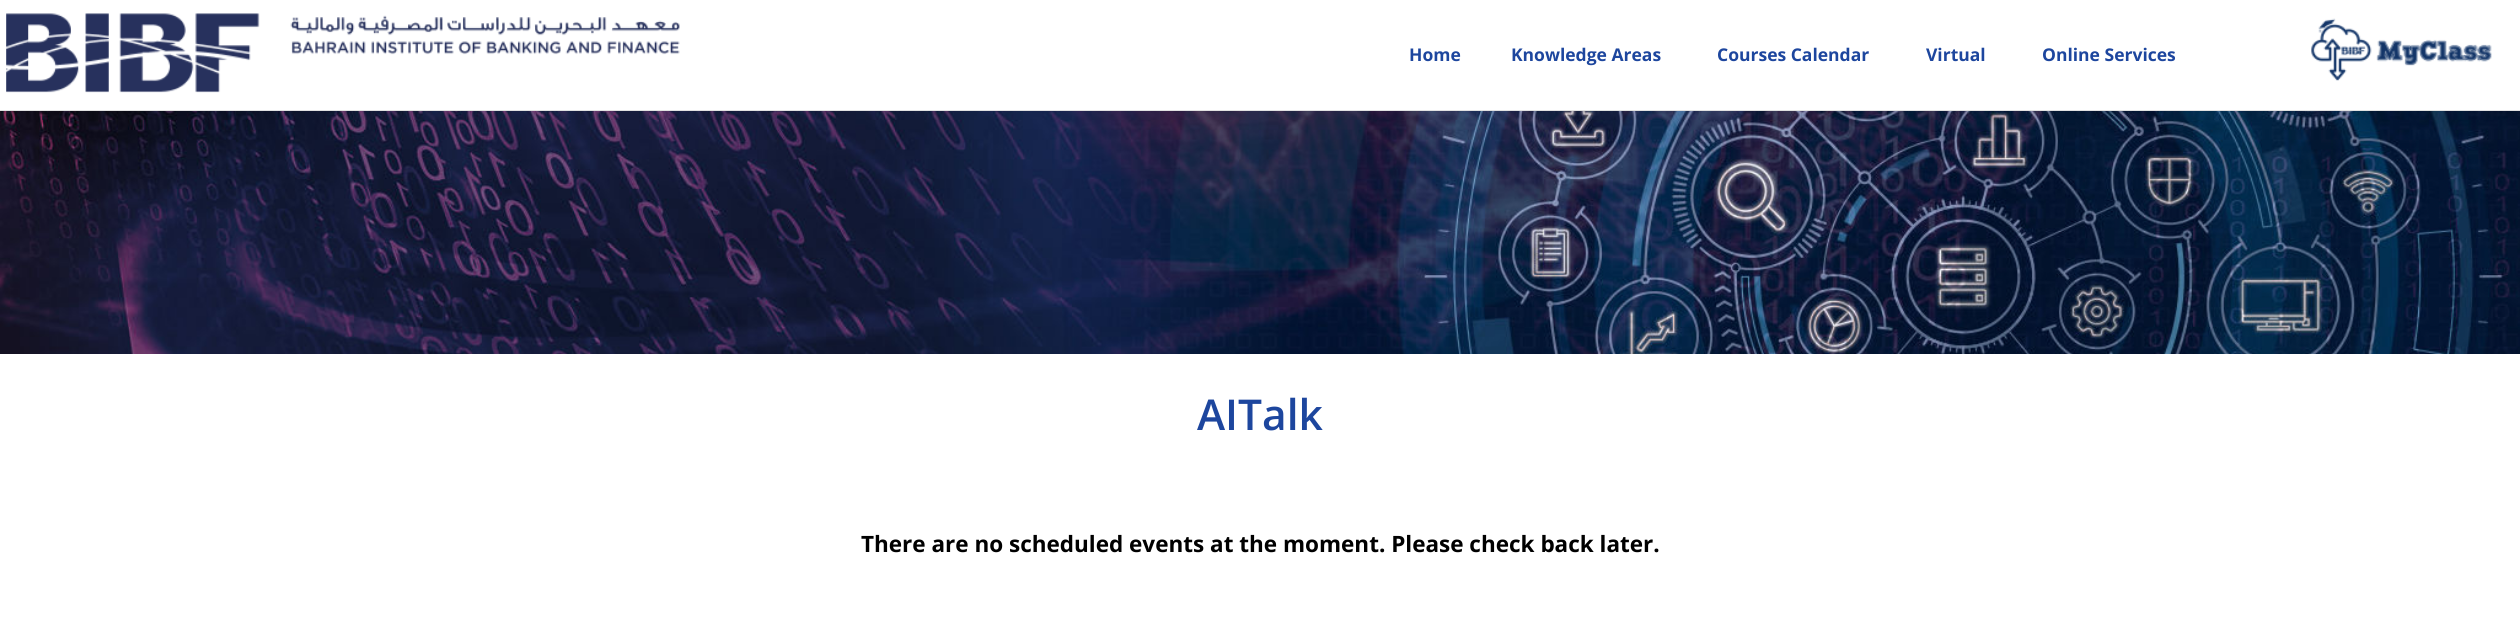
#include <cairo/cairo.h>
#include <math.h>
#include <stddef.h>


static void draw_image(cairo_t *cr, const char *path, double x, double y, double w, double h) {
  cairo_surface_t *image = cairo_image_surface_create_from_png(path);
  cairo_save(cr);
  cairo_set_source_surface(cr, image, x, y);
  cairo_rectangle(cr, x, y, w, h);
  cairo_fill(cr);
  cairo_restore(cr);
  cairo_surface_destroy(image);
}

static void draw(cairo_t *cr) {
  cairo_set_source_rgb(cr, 1, 1, 1);
  cairo_paint(cr);
  cairo_set_source_rgb(cr, 225 / 255.0, 225 / 255.0, 225 / 255.0);
  cairo_rectangle(cr, 0, 110, 2520, 1);
  cairo_fill(cr);
  draw_image(cr, "images/1.png", 6, 13, 674, 80);
  draw_image(cr, "images/2.png", 2311, 18, 181, 63);
  draw_image(cr, "images/3.png", 0, 111, 2520, 243);
  cairo_select_font_face(cr, "Open Sans", CAIRO_FONT_SLANT_NORMAL, CAIRO_FONT_WEIGHT_BOLD);
  cairo_set_font_size(cr, 17.5);
  cairo_set_source_rgb(cr, 29 / 255.0, 70 / 255.0, 158 / 255.0);
  cairo_move_to(cr, 1409, 61);
  cairo_show_text(cr, "Home");
  cairo_move_to(cr, 1511, 61);
  cairo_show_text(cr, "Knowledge Areas");
  cairo_move_to(cr, 1717, 61);
  cairo_show_text(cr, "Courses Calendar");
  cairo_move_to(cr, 1926, 61);
  cairo_show_text(cr, "Virtual");
  cairo_move_to(cr, 2042, 61);
  cairo_show_text(cr, "Online Services");
  cairo_select_font_face(cr, "Open Sans SemiBold", CAIRO_FONT_SLANT_NORMAL, CAIRO_FONT_WEIGHT_NORMAL);
  cairo_set_font_size(cr, 42.5);
  cairo_move_to(cr, 1197, 430);
  cairo_show_text(cr, "AITalk");
  cairo_select_font_face(cr, "Open Sans", CAIRO_FONT_SLANT_NORMAL, CAIRO_FONT_WEIGHT_BOLD);
  cairo_set_font_size(cr, 22.5);
  cairo_set_source_rgb(cr, 0, 0, 0);
  cairo_move_to(cr, 861, 552);
  cairo_show_text(cr, "There are no scheduled events at the moment. Please check back later.");
}

int main(void) {
  cairo_surface_t *surface = cairo_image_surface_create(CAIRO_FORMAT_RGB24, 2520, 622);
  cairo_t *cr = cairo_create(surface);
  cairo_font_options_t *options = cairo_font_options_create();
  cairo_font_options_set_hint_metrics(options, CAIRO_HINT_METRICS_OFF);
  cairo_font_options_set_hint_style(options, CAIRO_HINT_STYLE_NONE);
  cairo_set_font_options(cr, options);
  cairo_set_miter_limit(cr, 4);
  draw(cr);
  cairo_surface_write_to_png(surface, "out.png");
  cairo_font_options_destroy(options);
  cairo_destroy(cr);
  cairo_surface_destroy(surface);
  return 0;
}
